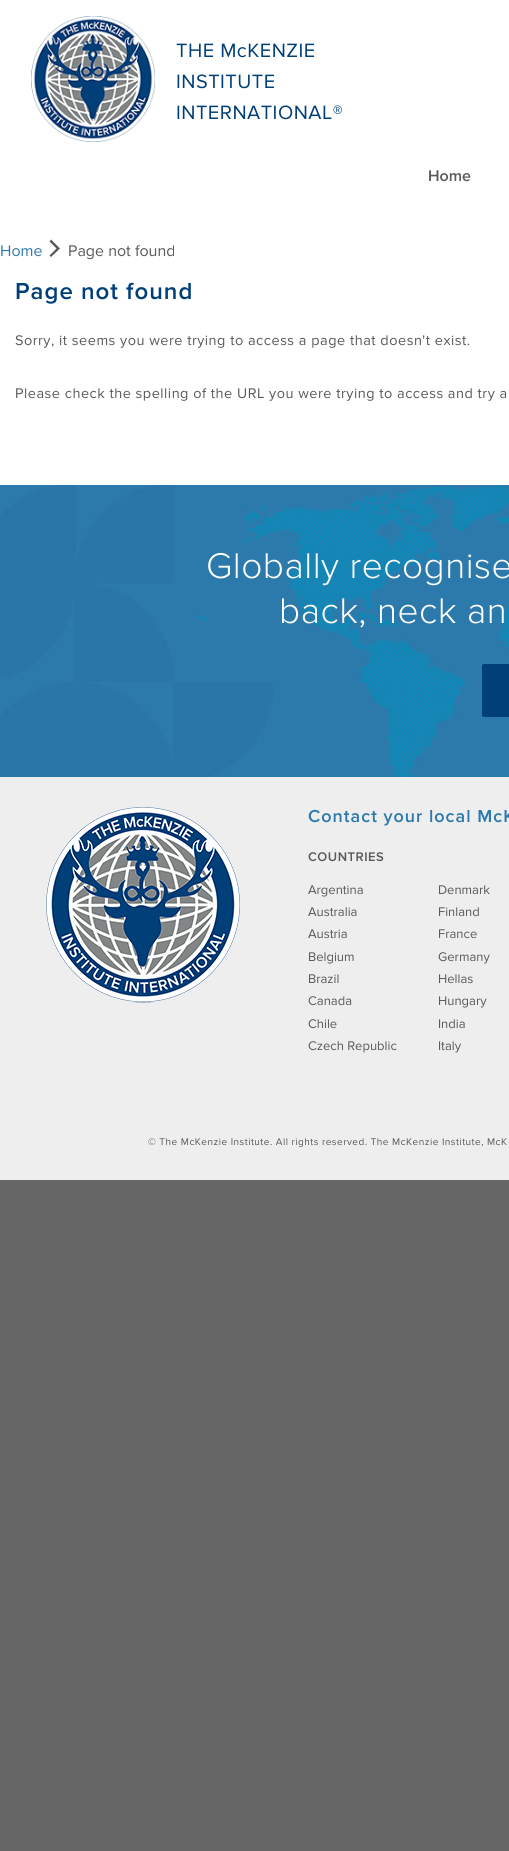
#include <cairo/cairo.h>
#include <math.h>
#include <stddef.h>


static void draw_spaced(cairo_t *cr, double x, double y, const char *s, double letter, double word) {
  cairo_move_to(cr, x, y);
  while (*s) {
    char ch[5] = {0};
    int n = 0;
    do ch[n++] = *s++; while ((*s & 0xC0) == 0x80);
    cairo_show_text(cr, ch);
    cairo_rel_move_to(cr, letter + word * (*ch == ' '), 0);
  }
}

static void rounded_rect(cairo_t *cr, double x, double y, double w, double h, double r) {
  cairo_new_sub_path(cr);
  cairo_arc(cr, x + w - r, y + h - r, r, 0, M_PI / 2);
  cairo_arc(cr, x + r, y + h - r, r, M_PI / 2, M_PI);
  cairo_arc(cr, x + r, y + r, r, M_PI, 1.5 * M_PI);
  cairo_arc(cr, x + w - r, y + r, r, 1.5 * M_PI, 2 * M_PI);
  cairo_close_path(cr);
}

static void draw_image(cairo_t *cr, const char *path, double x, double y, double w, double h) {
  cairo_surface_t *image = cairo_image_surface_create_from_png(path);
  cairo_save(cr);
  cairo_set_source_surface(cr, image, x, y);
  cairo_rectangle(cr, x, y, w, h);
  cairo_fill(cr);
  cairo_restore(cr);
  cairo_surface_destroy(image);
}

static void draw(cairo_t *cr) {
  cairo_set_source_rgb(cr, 102 / 255.0, 102 / 255.0, 102 / 255.0);
  cairo_paint(cr);
  cairo_set_source_rgb(cr, 1, 1, 1);
  cairo_rectangle(cr, 0, 0, 509, 485);
  cairo_fill(cr);
  draw_image(cr, "images/1.png", 31, 16, 125, 126);
  cairo_set_source_rgb(cr, 88 / 255.0, 89 / 255.0, 91 / 255.0);
  cairo_new_path(cr);
  cairo_move_to(cr, 51, 257);
  cairo_line_to(cr, 49.5, 255.5);
  cairo_line_to(cr, 56.5, 248.5);
  cairo_line_to(cr, 49.5, 241.5);
  cairo_line_to(cr, 51, 239.5);
  cairo_line_to(cr, 60, 248.5);
  cairo_close_path(cr);
  cairo_fill(cr);
  cairo_set_source_rgb(cr, 238 / 255.0, 238 / 255.0, 238 / 255.0);
  cairo_rectangle(cr, 0, 777, 509, 403);
  cairo_fill(cr);
  draw_image(cr, "images/2.png", 0, 485, 509, 292);
  cairo_set_source_rgb(cr, 0, 63 / 255.0, 119 / 255.0);
  rounded_rect(cr, 482.5, 664.5, 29, 52, 1.5);
  cairo_fill_preserve(cr);
  cairo_set_line_width(cr, 1);
  cairo_stroke(cr);
  draw_image(cr, "images/3.png", 46, 807, 194, 196);
  cairo_select_font_face(cr, "Proxima Nova", CAIRO_FONT_SLANT_NORMAL, CAIRO_FONT_WEIGHT_NORMAL);
  cairo_set_font_size(cr, 20);
  draw_spaced(cr, 176, 57, "THE McKENZIE", 0.5, 0);
  draw_spaced(cr, 176, 88, "INSTITUTE", 0.5, 0);
  draw_spaced(cr, 176, 119, "INTERNATIONAL®", 0.5, 0);
  cairo_select_font_face(cr, "Proxima Nova SemiBold", CAIRO_FONT_SLANT_NORMAL, CAIRO_FONT_WEIGHT_NORMAL);
  cairo_set_font_size(cr, 16);
  cairo_set_source_rgb(cr, 88 / 255.0, 89 / 255.0, 91 / 255.0);
  cairo_move_to(cr, 428, 181);
  cairo_show_text(cr, "Home");
  cairo_select_font_face(cr, "Proxima Nova", CAIRO_FONT_SLANT_NORMAL, CAIRO_FONT_WEIGHT_NORMAL);
  cairo_set_source_rgb(cr, 44 / 255.0, 122 / 255.0, 171 / 255.0);
  cairo_move_to(cr, 0, 256);
  cairo_show_text(cr, "Home");
  cairo_set_source_rgb(cr, 88 / 255.0, 89 / 255.0, 91 / 255.0);
  cairo_move_to(cr, 68, 256);
  cairo_show_text(cr, "Page not found");
  cairo_select_font_face(cr, "Proxima Nova SemiBold", CAIRO_FONT_SLANT_NORMAL, CAIRO_FONT_WEIGHT_NORMAL);
  cairo_set_font_size(cr, 24);
  cairo_set_source_rgb(cr, 0, 63 / 255.0, 119 / 255.0);
  draw_spaced(cr, 15, 299, "Page not found", 1, 0);
  cairo_select_font_face(cr, "Proxima Nova", CAIRO_FONT_SLANT_NORMAL, CAIRO_FONT_WEIGHT_NORMAL);
  cairo_set_font_size(cr, 14.5);
  cairo_set_source_rgb(cr, 88 / 255.0, 89 / 255.0, 91 / 255.0);
  draw_spaced(cr, 15, 345, "Sorry, it seems you were trying to access a page that doesn't exist.", 0.5, 0);
  draw_spaced(cr, 15, 398, "Please check the spelling of the URL you were trying to access and try a", 0.5, 0);
  cairo_select_font_face(cr, "Proxima Nova Light", CAIRO_FONT_SLANT_NORMAL, CAIRO_FONT_WEIGHT_NORMAL);
  cairo_set_font_size(cr, 37);
  cairo_set_source_rgb(cr, 1, 1, 1);
  draw_spaced(cr, 206, 578, "Globally recognise", 0.5, 0);
  draw_spaced(cr, 279, 623, "back, neck an", 0.5, 0);
  cairo_select_font_face(cr, "Proxima Nova SemiBold", CAIRO_FONT_SLANT_NORMAL, CAIRO_FONT_WEIGHT_NORMAL);
  cairo_set_font_size(cr, 18);
  cairo_set_source_rgb(cr, 44 / 255.0, 122 / 255.0, 171 / 255.0);
  draw_spaced(cr, 308, 822, "Contact your local McK", 1, 0);
  cairo_set_font_size(cr, 13);
  cairo_set_source_rgb(cr, 88 / 255.0, 89 / 255.0, 91 / 255.0);
  draw_spaced(cr, 308, 861, "COUNTRIES", 0.5, 0);
  cairo_select_font_face(cr, "Proxima Nova", CAIRO_FONT_SLANT_NORMAL, CAIRO_FONT_WEIGHT_NORMAL);
  cairo_move_to(cr, 308, 894);
  cairo_show_text(cr, "Argentina");
  cairo_move_to(cr, 308, 916);
  cairo_show_text(cr, "Australia");
  cairo_move_to(cr, 308, 938);
  cairo_show_text(cr, "Austria");
  cairo_move_to(cr, 308, 961);
  cairo_show_text(cr, "Belgium");
  cairo_move_to(cr, 308, 983);
  cairo_show_text(cr, "Brazil");
  cairo_move_to(cr, 308, 1005);
  cairo_show_text(cr, "Canada");
  cairo_move_to(cr, 308, 1028);
  cairo_show_text(cr, "Chile");
  cairo_move_to(cr, 308, 1050);
  cairo_show_text(cr, "Czech Republic");
  cairo_move_to(cr, 438, 894);
  cairo_show_text(cr, "Denmark");
  cairo_move_to(cr, 438, 916);
  cairo_show_text(cr, "Finland");
  cairo_move_to(cr, 438, 938);
  cairo_show_text(cr, "France");
  cairo_move_to(cr, 438, 961);
  cairo_show_text(cr, "Germany");
  cairo_move_to(cr, 438, 983);
  cairo_show_text(cr, "Hellas");
  cairo_move_to(cr, 438, 1005);
  cairo_show_text(cr, "Hungary");
  cairo_move_to(cr, 438, 1028);
  cairo_show_text(cr, "India");
  cairo_move_to(cr, 438, 1050);
  cairo_show_text(cr, "Italy");
  cairo_set_font_size(cr, 10);
  draw_spaced(cr, 148, 1145, "© The McKenzie Institute. All rights reserved. The McKenzie Institute, McK", 0.5, 0);
}

int main(void) {
  cairo_surface_t *surface = cairo_image_surface_create(CAIRO_FORMAT_RGB24, 509, 1851);
  cairo_t *cr = cairo_create(surface);
  cairo_font_options_t *options = cairo_font_options_create();
  cairo_font_options_set_hint_metrics(options, CAIRO_HINT_METRICS_OFF);
  cairo_font_options_set_hint_style(options, CAIRO_HINT_STYLE_NONE);
  cairo_set_font_options(cr, options);
  cairo_set_miter_limit(cr, 4);
  draw(cr);
  cairo_surface_write_to_png(surface, "out.png");
  cairo_font_options_destroy(options);
  cairo_destroy(cr);
  cairo_surface_destroy(surface);
  return 0;
}
